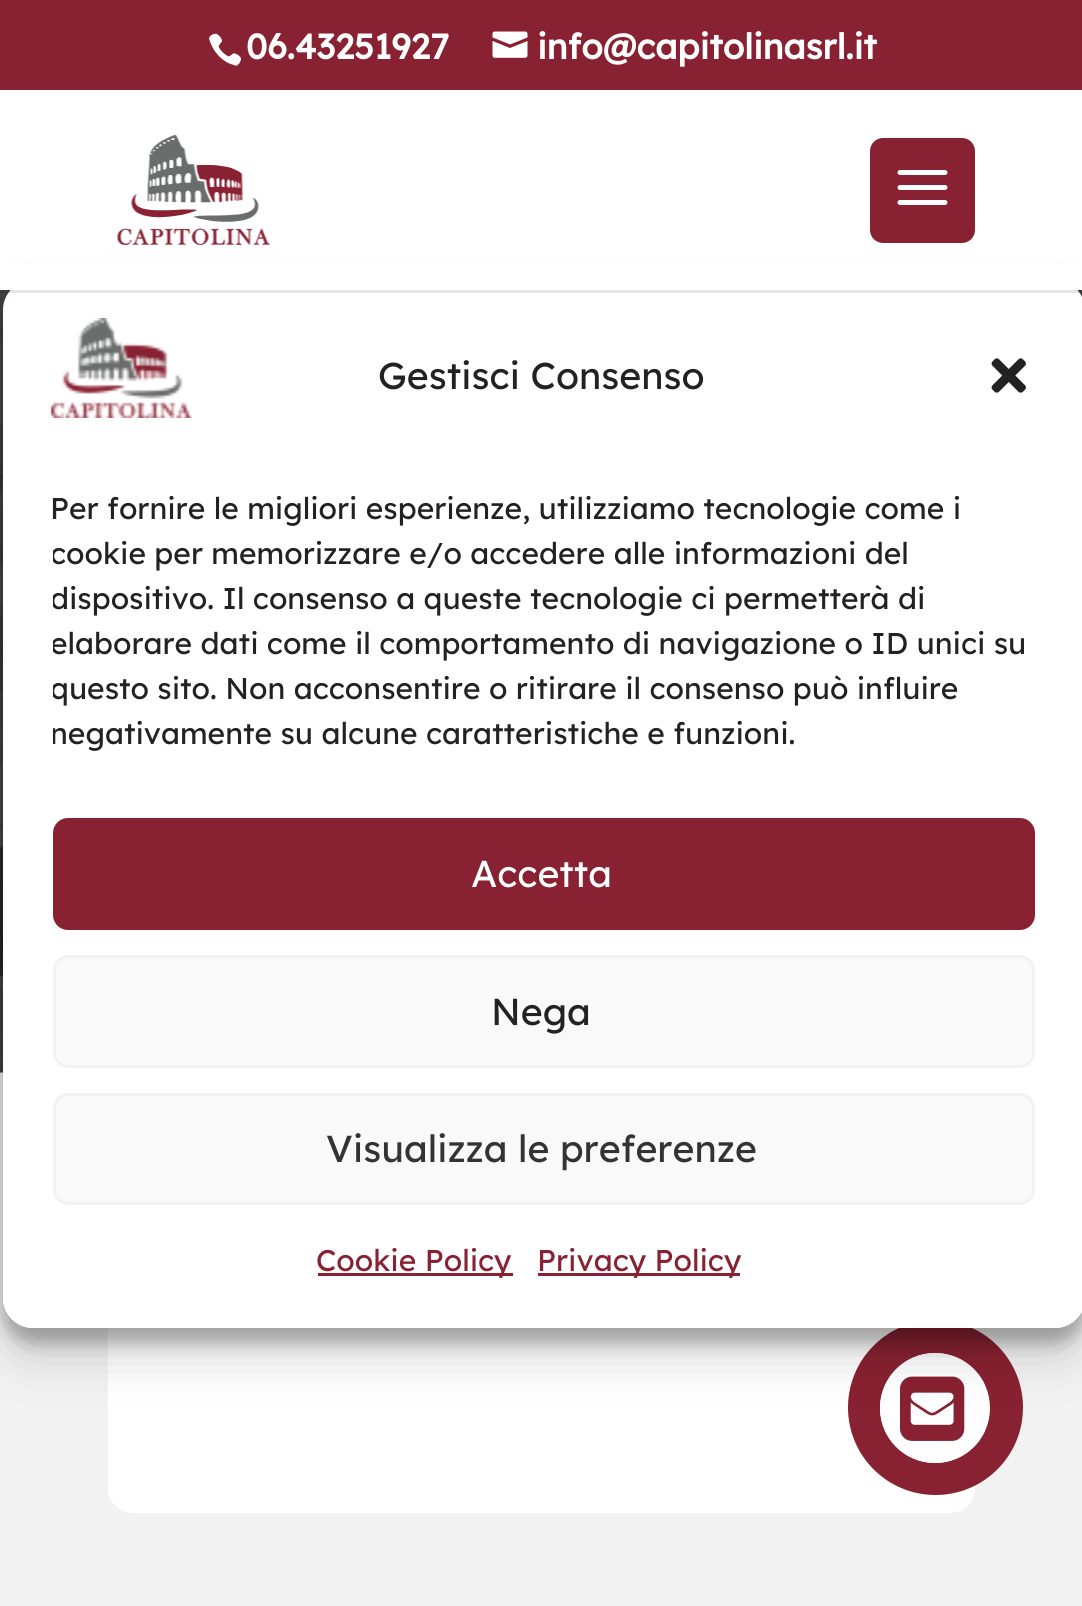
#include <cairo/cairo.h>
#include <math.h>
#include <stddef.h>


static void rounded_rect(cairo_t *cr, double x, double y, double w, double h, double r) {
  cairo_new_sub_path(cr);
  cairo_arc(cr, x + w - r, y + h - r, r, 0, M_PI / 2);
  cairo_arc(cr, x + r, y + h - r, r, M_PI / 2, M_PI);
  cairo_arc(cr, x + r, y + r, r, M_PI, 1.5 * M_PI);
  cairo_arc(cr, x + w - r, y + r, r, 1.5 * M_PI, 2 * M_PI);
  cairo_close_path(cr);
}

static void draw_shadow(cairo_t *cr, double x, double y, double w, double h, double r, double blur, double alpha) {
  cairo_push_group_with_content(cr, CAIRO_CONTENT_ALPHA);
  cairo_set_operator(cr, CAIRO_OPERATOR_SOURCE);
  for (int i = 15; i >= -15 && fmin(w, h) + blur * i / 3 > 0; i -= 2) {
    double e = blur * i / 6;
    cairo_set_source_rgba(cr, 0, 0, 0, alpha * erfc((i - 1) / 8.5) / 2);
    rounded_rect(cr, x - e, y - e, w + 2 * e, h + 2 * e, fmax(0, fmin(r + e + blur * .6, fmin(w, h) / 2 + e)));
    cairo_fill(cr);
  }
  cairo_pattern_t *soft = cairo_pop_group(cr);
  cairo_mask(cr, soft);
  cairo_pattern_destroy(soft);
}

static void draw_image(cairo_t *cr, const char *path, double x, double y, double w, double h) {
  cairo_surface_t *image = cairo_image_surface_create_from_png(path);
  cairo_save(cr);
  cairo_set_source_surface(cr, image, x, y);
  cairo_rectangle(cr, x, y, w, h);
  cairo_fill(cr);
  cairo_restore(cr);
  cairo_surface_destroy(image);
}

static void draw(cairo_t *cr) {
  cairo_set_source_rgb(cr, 1, 1, 1);
  cairo_paint(cr);
  cairo_set_source_rgb(cr, 136 / 255.0, 33 / 255.0, 49 / 255.0);
  cairo_rectangle(cr, 0, 0, 1082, 90);
  cairo_fill(cr);
  draw_image(cr, "images/1.png", 209, 33, 32, 33);
  draw_image(cr, "images/2.png", 492, 31, 36, 27);
  draw_image(cr, "images/5.png", 0, 290, 1082, 783);
  cairo_set_source_rgb(cr, 242 / 255.0, 242 / 255.0, 242 / 255.0);
  cairo_rectangle(cr, 0, 1073, 1082, 533);
  cairo_fill(cr);
  cairo_set_source_rgb(cr, 1, 1, 1);
  rounded_rect(cr, 108, 648, 867, 865, 25);
  cairo_fill(cr);
  draw_image(cr, "images/6.png", 107, 1328, 868, 169);
  cairo_set_source_rgb(cr, 136 / 255.0, 33 / 255.0, 49 / 255.0);
  cairo_arc(cr, 935.5, 1407.5, 87.5, 0, 2 * M_PI);
  cairo_fill(cr);
  cairo_set_source_rgb(cr, 1, 1, 1);
  cairo_arc(cr, 935, 1408, 55, 0, 2 * M_PI);
  cairo_fill(cr);
  cairo_save(cr);
  rounded_rect(cr, 880, 1353, 110, 110, 55);
  cairo_clip(cr);
  cairo_new_path(cr);
  cairo_move_to(cr, 935, 1353);
  cairo_line_to(cr, 985, 1353);
  cairo_line_to(cr, 985, 1463);
  cairo_line_to(cr, 935, 1463);
  cairo_curve_to(cr, 904.5, 1463, 880, 1438.5, 880, 1408);
  cairo_curve_to(cr, 880, 1377.5, 904.5, 1353, 935, 1353);
  cairo_close_path(cr);
  cairo_fill(cr);
  cairo_restore(cr);
  cairo_save(cr);
  cairo_set_fill_rule(cr, CAIRO_FILL_RULE_EVEN_ODD);
  cairo_new_path(cr);
  cairo_move_to(cr, 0, 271);
  cairo_line_to(cr, 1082, 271);
  cairo_line_to(cr, 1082, 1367);
  cairo_line_to(cr, 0, 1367);
  cairo_close_path(cr);
  cairo_move_to(cr, 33, 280);
  cairo_line_to(cr, 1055, 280);
  cairo_curve_to(cr, 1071.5, 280, 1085, 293.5, 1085, 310);
  cairo_line_to(cr, 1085, 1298);
  cairo_curve_to(cr, 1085, 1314.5, 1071.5, 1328, 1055, 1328);
  cairo_line_to(cr, 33, 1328);
  cairo_curve_to(cr, 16.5, 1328, 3, 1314.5, 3, 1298);
  cairo_line_to(cr, 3, 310);
  cairo_curve_to(cr, 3, 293.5, 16.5, 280, 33, 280);
  cairo_close_path(cr);
  cairo_clip(cr);
  cairo_set_source_rgb(cr, 0, 0, 0);
  draw_shadow(cr, 3, 295, 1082, 1048, 30, 7.5, 0.23);
  cairo_restore(cr);
  draw_image(cr, "images/9.png", 900, 1376, 65, 65);
  cairo_save(cr);
  cairo_set_fill_rule(cr, CAIRO_FILL_RULE_EVEN_ODD);
  cairo_new_path(cr);
  cairo_move_to(cr, 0, 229);
  cairo_line_to(cr, 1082, 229);
  cairo_line_to(cr, 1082, 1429);
  cairo_line_to(cr, 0, 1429);
  cairo_close_path(cr);
  cairo_move_to(cr, 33, 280);
  cairo_line_to(cr, 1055, 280);
  cairo_curve_to(cr, 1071.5, 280, 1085, 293.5, 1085, 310);
  cairo_line_to(cr, 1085, 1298);
  cairo_curve_to(cr, 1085, 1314.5, 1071.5, 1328, 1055, 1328);
  cairo_line_to(cr, 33, 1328);
  cairo_curve_to(cr, 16.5, 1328, 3, 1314.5, 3, 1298);
  cairo_line_to(cr, 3, 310);
  cairo_curve_to(cr, 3, 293.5, 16.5, 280, 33, 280);
  cairo_close_path(cr);
  cairo_clip(cr);
  cairo_set_source_rgb(cr, 0, 0, 0);
  draw_shadow(cr, 3, 305, 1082, 1048, 30, 25, 0.19);
  cairo_restore(cr);
  rounded_rect(cr, 3, 280, 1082, 1048, 30);
  cairo_fill(cr);
  cairo_set_source_rgba(cr, 0, 0, 0, 0.1);
  cairo_new_path(cr);
  cairo_move_to(cr, 0, 290);
  cairo_line_to(cr, 0, 293);
  cairo_line_to(cr, 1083, 293);
  cairo_line_to(cr, 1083, 93);
  cairo_line_to(cr, 1082, 93);
  cairo_line_to(cr, 1082, 290);
  cairo_close_path(cr);
  cairo_fill(cr);
  cairo_set_source_rgb(cr, 1, 1, 1);
  cairo_rectangle(cr, 0, 265, 1082, 25);
  cairo_fill(cr);
  draw_image(cr, "images/3.png", 117, 135, 154, 110);
  cairo_set_source_rgb(cr, 136 / 255.0, 33 / 255.0, 49 / 255.0);
  rounded_rect(cr, 870, 138, 105, 105, 13);
  cairo_fill(cr);
  draw_image(cr, "images/4.png", 897, 170, 51, 35);
  draw_image(cr, "images/7.png", 50, 318, 142, 100);
  draw_image(cr, "images/8.png", 991, 358, 35, 35);
  rounded_rect(cr, 54.5, 819.5, 979, 109, 13.5);
  cairo_fill_preserve(cr);
  cairo_set_line_width(cr, 3);
  cairo_stroke(cr);
  cairo_set_source_rgb(cr, 249 / 255.0, 249 / 255.0, 249 / 255.0);
  rounded_rect(cr, 54.5, 956.5, 979, 110, 13.5);
  cairo_fill_preserve(cr);
  cairo_set_source_rgb(cr, 242 / 255.0, 242 / 255.0, 242 / 255.0);
  cairo_stroke(cr);
  cairo_set_source_rgb(cr, 249 / 255.0, 249 / 255.0, 249 / 255.0);
  rounded_rect(cr, 54.5, 1094.5, 979, 109, 13.5);
  cairo_fill_preserve(cr);
  cairo_set_source_rgb(cr, 242 / 255.0, 242 / 255.0, 242 / 255.0);
  cairo_stroke(cr);
  cairo_set_source_rgb(cr, 136 / 255.0, 33 / 255.0, 49 / 255.0);
  cairo_rectangle(cr, 318, 1273, 195, 3);
  cairo_fill(cr);
  cairo_rectangle(cr, 538, 1273, 202, 3);
  cairo_fill(cr);
  cairo_select_font_face(cr, "Lexend Deca", CAIRO_FONT_SLANT_NORMAL, CAIRO_FONT_WEIGHT_BOLD);
  cairo_set_font_size(cr, 35);
  cairo_set_source_rgb(cr, 1, 1, 1);
  cairo_move_to(cr, 246, 59);
  cairo_show_text(cr, "06.43251927");
  cairo_move_to(cr, 537, 59);
  cairo_show_text(cr, "info@capitolinasrl.it");
  cairo_select_font_face(cr, "Lexend Deca", CAIRO_FONT_SLANT_NORMAL, CAIRO_FONT_WEIGHT_NORMAL);
  cairo_set_font_size(cr, 37.5);
  cairo_set_source_rgb(cr, 34 / 255.0, 34 / 255.0, 34 / 255.0);
  cairo_move_to(cr, 378, 389);
  cairo_show_text(cr, "Gestisci Consenso");
  cairo_set_font_size(cr, 30);
  cairo_move_to(cr, 50, 519);
  cairo_show_text(cr, "Per fornire le migliori esperienze, utilizziamo tecnologie come i");
  cairo_save(cr);
  cairo_rectangle(cr, 53, 485, 982, 283);
  cairo_clip(cr);
  cairo_move_to(cr, 50, 564);
  cairo_show_text(cr, "cookie per memorizzare e/o accedere alle informazioni del");
  cairo_move_to(cr, 50, 609);
  cairo_show_text(cr, "dispositivo. Il consenso a queste tecnologie ci permetterà di");
  cairo_move_to(cr, 50, 654);
  cairo_show_text(cr, "elaborare dati come il comportamento di navigazione o ID unici su");
  cairo_move_to(cr, 50, 699);
  cairo_show_text(cr, "questo sito. Non acconsentire o ritirare il consenso può influire");
  cairo_move_to(cr, 50, 744);
  cairo_show_text(cr, "negativamente su alcune caratteristiche e funzioni.");
  cairo_restore(cr);
  cairo_set_font_size(cr, 37.5);
  cairo_set_source_rgb(cr, 1, 1, 1);
  cairo_move_to(cr, 471, 887);
  cairo_show_text(cr, "Accetta");
  cairo_set_source_rgb(cr, 34 / 255.0, 34 / 255.0, 34 / 255.0);
  cairo_move_to(cr, 491, 1025);
  cairo_show_text(cr, "Nega");
  cairo_set_source_rgb(cr, 51 / 255.0, 51 / 255.0, 51 / 255.0);
  cairo_move_to(cr, 326, 1162);
  cairo_show_text(cr, "Visualizza le preferenze");
  cairo_set_font_size(cr, 30);
  cairo_set_source_rgb(cr, 136 / 255.0, 33 / 255.0, 49 / 255.0);
  cairo_move_to(cr, 316, 1271);
  cairo_show_text(cr, "Cookie Policy");
  cairo_move_to(cr, 537, 1271);
  cairo_show_text(cr, "Privacy Policy");
}

int main(void) {
  cairo_surface_t *surface = cairo_image_surface_create(CAIRO_FORMAT_RGB24, 1082, 1606);
  cairo_t *cr = cairo_create(surface);
  cairo_font_options_t *options = cairo_font_options_create();
  cairo_font_options_set_hint_metrics(options, CAIRO_HINT_METRICS_OFF);
  cairo_font_options_set_hint_style(options, CAIRO_HINT_STYLE_NONE);
  cairo_set_font_options(cr, options);
  cairo_set_miter_limit(cr, 4);
  draw(cr);
  cairo_surface_write_to_png(surface, "out.png");
  cairo_font_options_destroy(options);
  cairo_destroy(cr);
  cairo_surface_destroy(surface);
  return 0;
}
